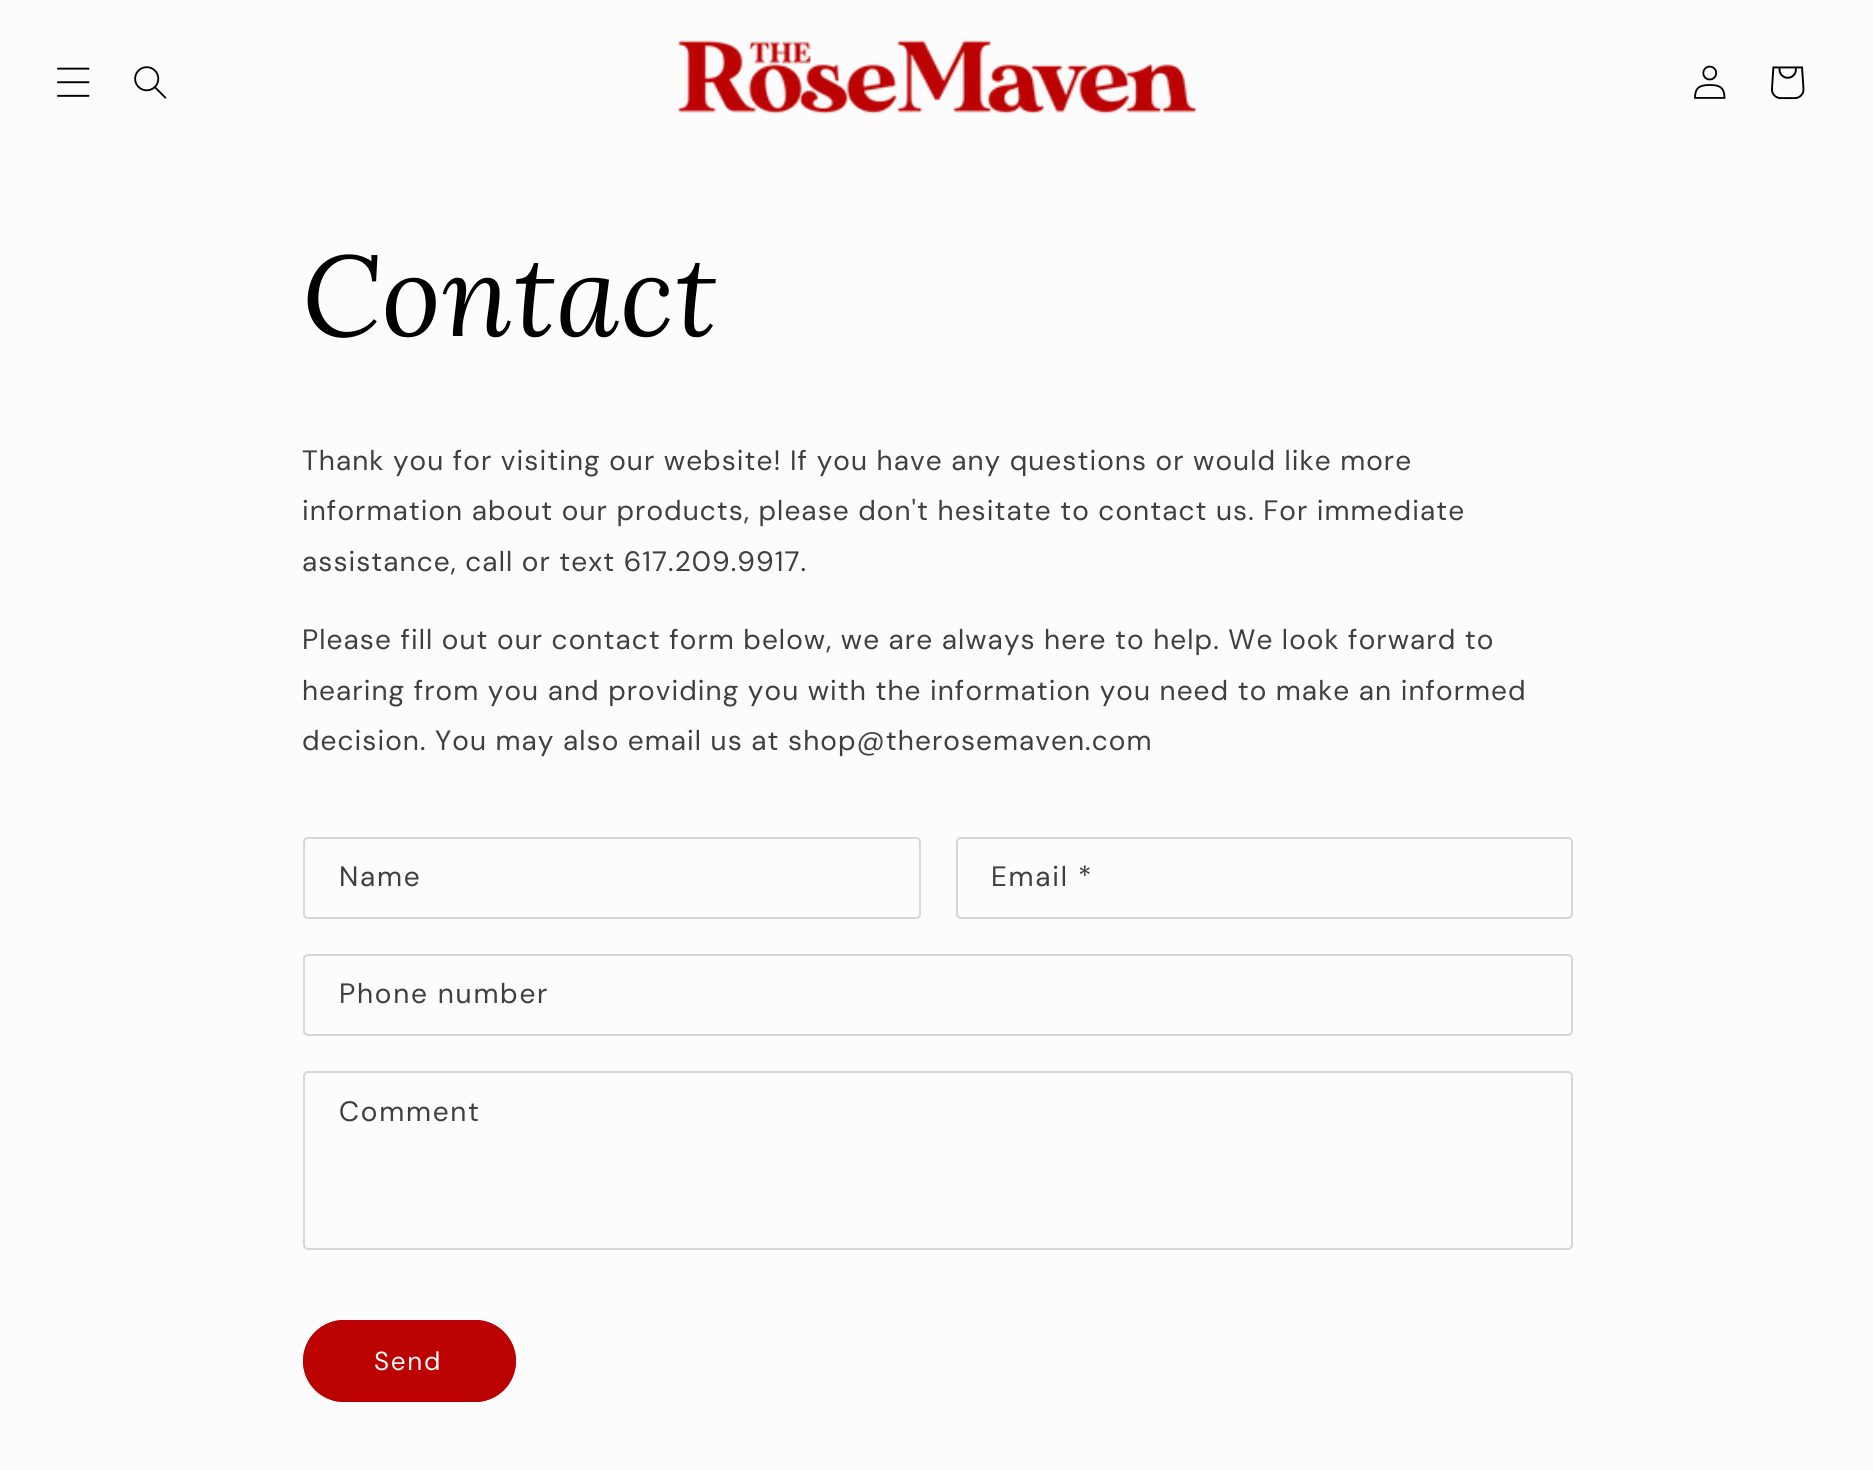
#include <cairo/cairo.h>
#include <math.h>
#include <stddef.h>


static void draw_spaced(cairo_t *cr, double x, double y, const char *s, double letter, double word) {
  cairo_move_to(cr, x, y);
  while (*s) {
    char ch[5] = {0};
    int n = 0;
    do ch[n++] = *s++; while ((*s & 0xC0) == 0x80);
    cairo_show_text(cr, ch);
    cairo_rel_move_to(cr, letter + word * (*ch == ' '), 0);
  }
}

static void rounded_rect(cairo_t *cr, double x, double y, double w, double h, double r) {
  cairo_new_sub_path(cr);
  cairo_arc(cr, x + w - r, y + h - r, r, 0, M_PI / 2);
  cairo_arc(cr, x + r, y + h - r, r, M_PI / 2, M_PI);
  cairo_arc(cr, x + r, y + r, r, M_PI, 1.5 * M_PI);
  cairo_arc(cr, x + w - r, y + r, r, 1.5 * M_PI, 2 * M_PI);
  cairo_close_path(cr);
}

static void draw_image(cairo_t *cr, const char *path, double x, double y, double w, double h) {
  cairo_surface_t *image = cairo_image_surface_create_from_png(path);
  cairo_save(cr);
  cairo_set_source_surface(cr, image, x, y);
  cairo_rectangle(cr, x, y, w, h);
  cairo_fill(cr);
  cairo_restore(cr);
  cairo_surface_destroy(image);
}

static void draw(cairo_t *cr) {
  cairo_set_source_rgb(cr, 252 / 255.0, 252 / 255.0, 252 / 255.0);
  cairo_paint(cr);
  draw_image(cr, "images/1.png", 57, 67, 33, 30);
  draw_image(cr, "images/2.png", 134, 66, 33, 33);
  draw_image(cr, "images/3.png", 678, 40, 519, 74);
  draw_image(cr, "images/4.png", 1694, 65, 32, 34);
  draw_image(cr, "images/5.png", 1771, 66, 34, 34);
  rounded_rect(cr, 304, 838, 616, 80, 4);
  cairo_set_source_rgb(cr, 214 / 255.0, 214 / 255.0, 214 / 255.0);
  cairo_stroke(cr);
  rounded_rect(cr, 957, 838, 615, 80, 4);
  cairo_stroke(cr);
  rounded_rect(cr, 304, 955, 1268, 80, 4);
  cairo_stroke(cr);
  rounded_rect(cr, 304, 1072, 1268, 177, 4);
  cairo_stroke(cr);
  cairo_set_source_rgb(cr, 188 / 255.0, 1 / 255.0, 1 / 255.0);
  rounded_rect(cr, 303, 1320, 213, 82, 41);
  cairo_fill(cr);
  rounded_rect(cr, 304, 1321, 211, 80, 40);
  cairo_stroke(cr);
  cairo_select_font_face(cr, "Lora", CAIRO_FONT_SLANT_ITALIC, CAIRO_FONT_WEIGHT_NORMAL);
  cairo_set_font_size(cr, 114);
  cairo_set_source_rgb(cr, 0, 0, 0);
  draw_spaced(cr, 302, 336, "Contact", 1.25, 0);
  cairo_select_font_face(cr, "DM Sans", CAIRO_FONT_SLANT_NORMAL, CAIRO_FONT_WEIGHT_NORMAL);
  cairo_set_font_size(cr, 28);
  cairo_set_source_rgb(cr, 63 / 255.0, 63 / 255.0, 63 / 255.0);
  draw_spaced(cr, 302, 470, "Thank you for visiting our website! If you have any questions or would like more", 1.05, 0);
  draw_spaced(cr, 302, 520, "information about our products, please don't hesitate to contact us. For immediate", 1.05, 0);
  draw_spaced(cr, 302, 571, "assistance, call or text 617.209.9917.", 1.05, 0);
  draw_spaced(cr, 302, 649, "Please fill out our contact form below, we are always here to help. We look forward to", 1.05, 0);
  draw_spaced(cr, 302, 700, "hearing from you and providing you with the information you need to make an informed", 1.05, 0);
  draw_spaced(cr, 302, 750, "decision. You may also email us at shop@therosemaven.com", 1.05, 0);
  draw_spaced(cr, 339, 886, "Name", 1.75, 0);
  draw_spaced(cr, 991, 886, "Email *", 1.75, 0);
  draw_spaced(cr, 339, 1003, "Phone number", 1.75, 0);
  draw_spaced(cr, 339, 1121, "Comment", 1.75, 0);
  cairo_select_font_face(cr, "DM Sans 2", CAIRO_FONT_SLANT_NORMAL, CAIRO_FONT_WEIGHT_NORMAL);
  cairo_set_font_size(cr, 26);
  cairo_set_source_rgb(cr, 252 / 255.0, 252 / 255.0, 252 / 255.0);
  draw_spaced(cr, 374, 1370, "Send", 1.75, 0);
}

int main(void) {
  cairo_surface_t *surface = cairo_image_surface_create(CAIRO_FORMAT_RGB24, 1873, 1470);
  cairo_t *cr = cairo_create(surface);
  cairo_font_options_t *options = cairo_font_options_create();
  cairo_font_options_set_hint_metrics(options, CAIRO_HINT_METRICS_OFF);
  cairo_font_options_set_hint_style(options, CAIRO_HINT_STYLE_NONE);
  cairo_set_font_options(cr, options);
  cairo_set_miter_limit(cr, 4);
  draw(cr);
  cairo_surface_write_to_png(surface, "out.png");
  cairo_font_options_destroy(options);
  cairo_destroy(cr);
  cairo_surface_destroy(surface);
  return 0;
}
